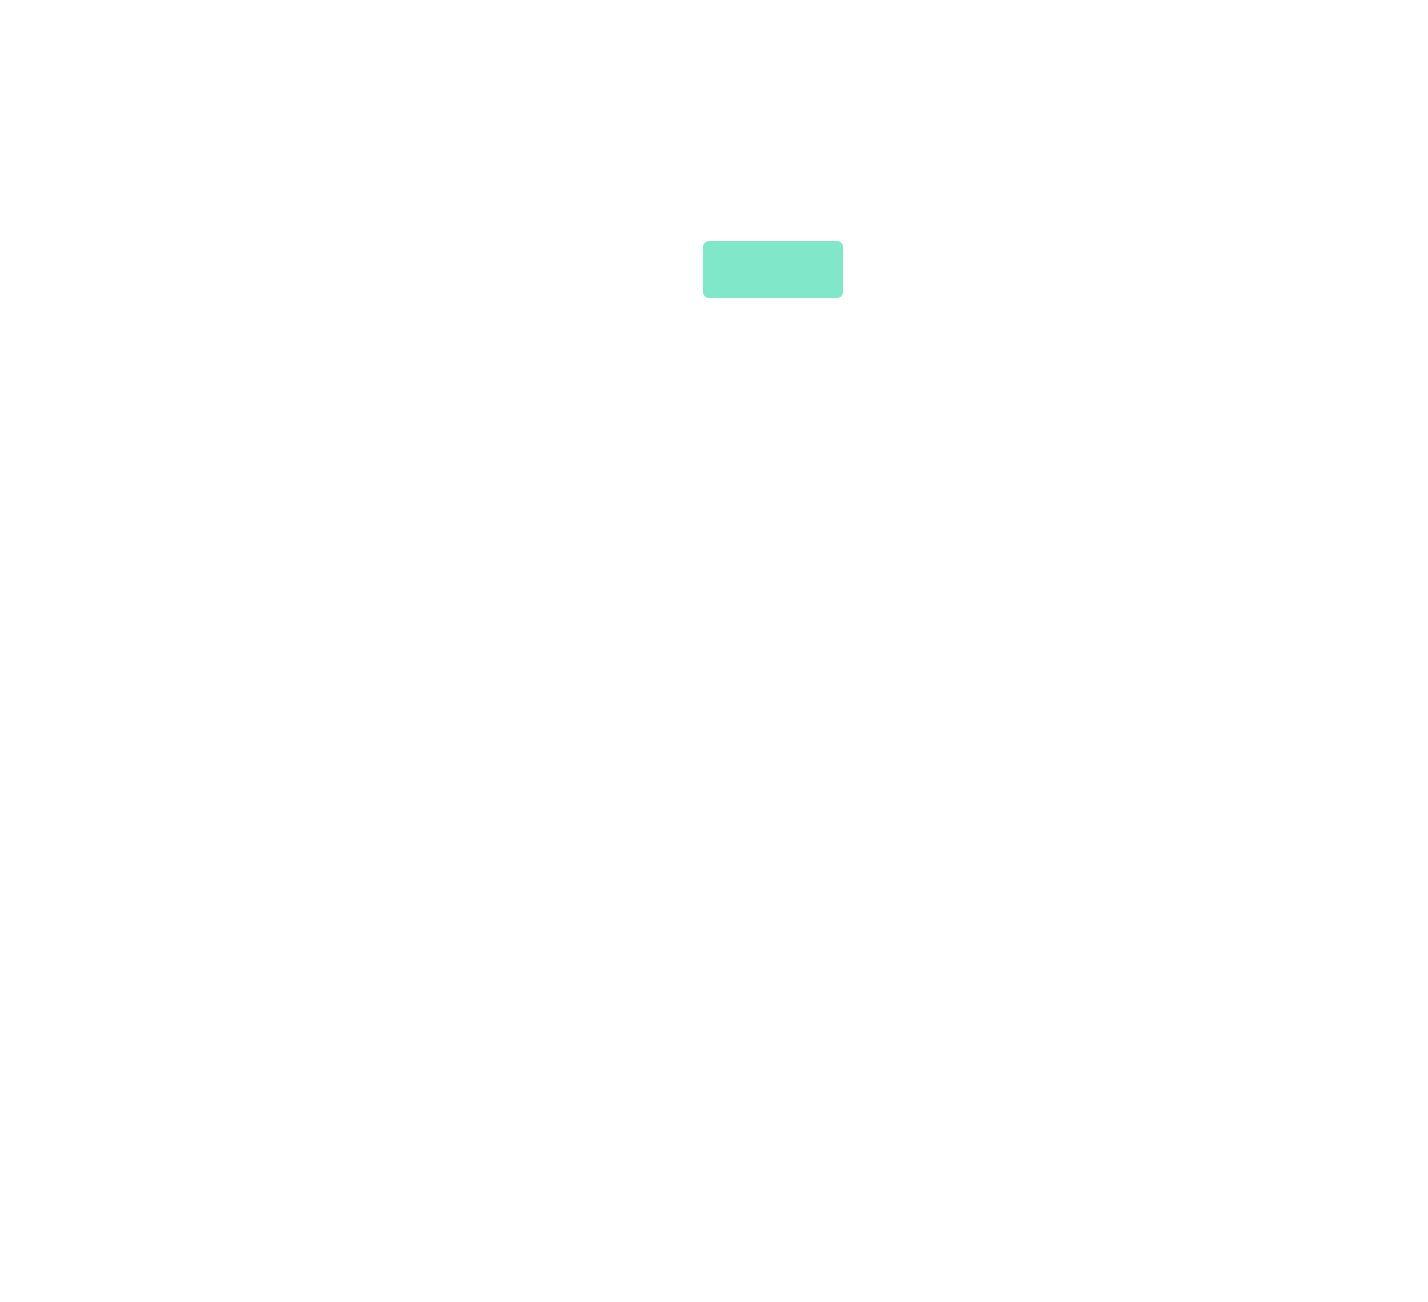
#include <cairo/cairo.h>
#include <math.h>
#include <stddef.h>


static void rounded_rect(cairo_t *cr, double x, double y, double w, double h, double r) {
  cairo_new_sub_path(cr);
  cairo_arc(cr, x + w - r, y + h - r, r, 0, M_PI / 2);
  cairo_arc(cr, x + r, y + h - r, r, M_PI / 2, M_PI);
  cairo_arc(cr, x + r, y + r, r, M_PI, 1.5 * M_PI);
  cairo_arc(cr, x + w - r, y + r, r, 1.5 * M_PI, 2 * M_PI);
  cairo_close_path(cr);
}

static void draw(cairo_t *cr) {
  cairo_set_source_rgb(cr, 1, 1, 1);
  cairo_paint(cr);
  cairo_set_source_rgb(cr, 128 / 255.0, 231 / 255.0, 200 / 255.0);
  rounded_rect(cr, 703, 241, 140, 57, 6);
  cairo_fill(cr);
}

int main(void) {
  cairo_surface_t *surface = cairo_image_surface_create(CAIRO_FORMAT_RGB24, 1428, 1302);
  cairo_t *cr = cairo_create(surface);
  cairo_font_options_t *options = cairo_font_options_create();
  cairo_font_options_set_hint_metrics(options, CAIRO_HINT_METRICS_OFF);
  cairo_font_options_set_hint_style(options, CAIRO_HINT_STYLE_NONE);
  cairo_set_font_options(cr, options);
  cairo_set_miter_limit(cr, 4);
  draw(cr);
  cairo_surface_write_to_png(surface, "out.png");
  cairo_font_options_destroy(options);
  cairo_destroy(cr);
  cairo_surface_destroy(surface);
  return 0;
}
